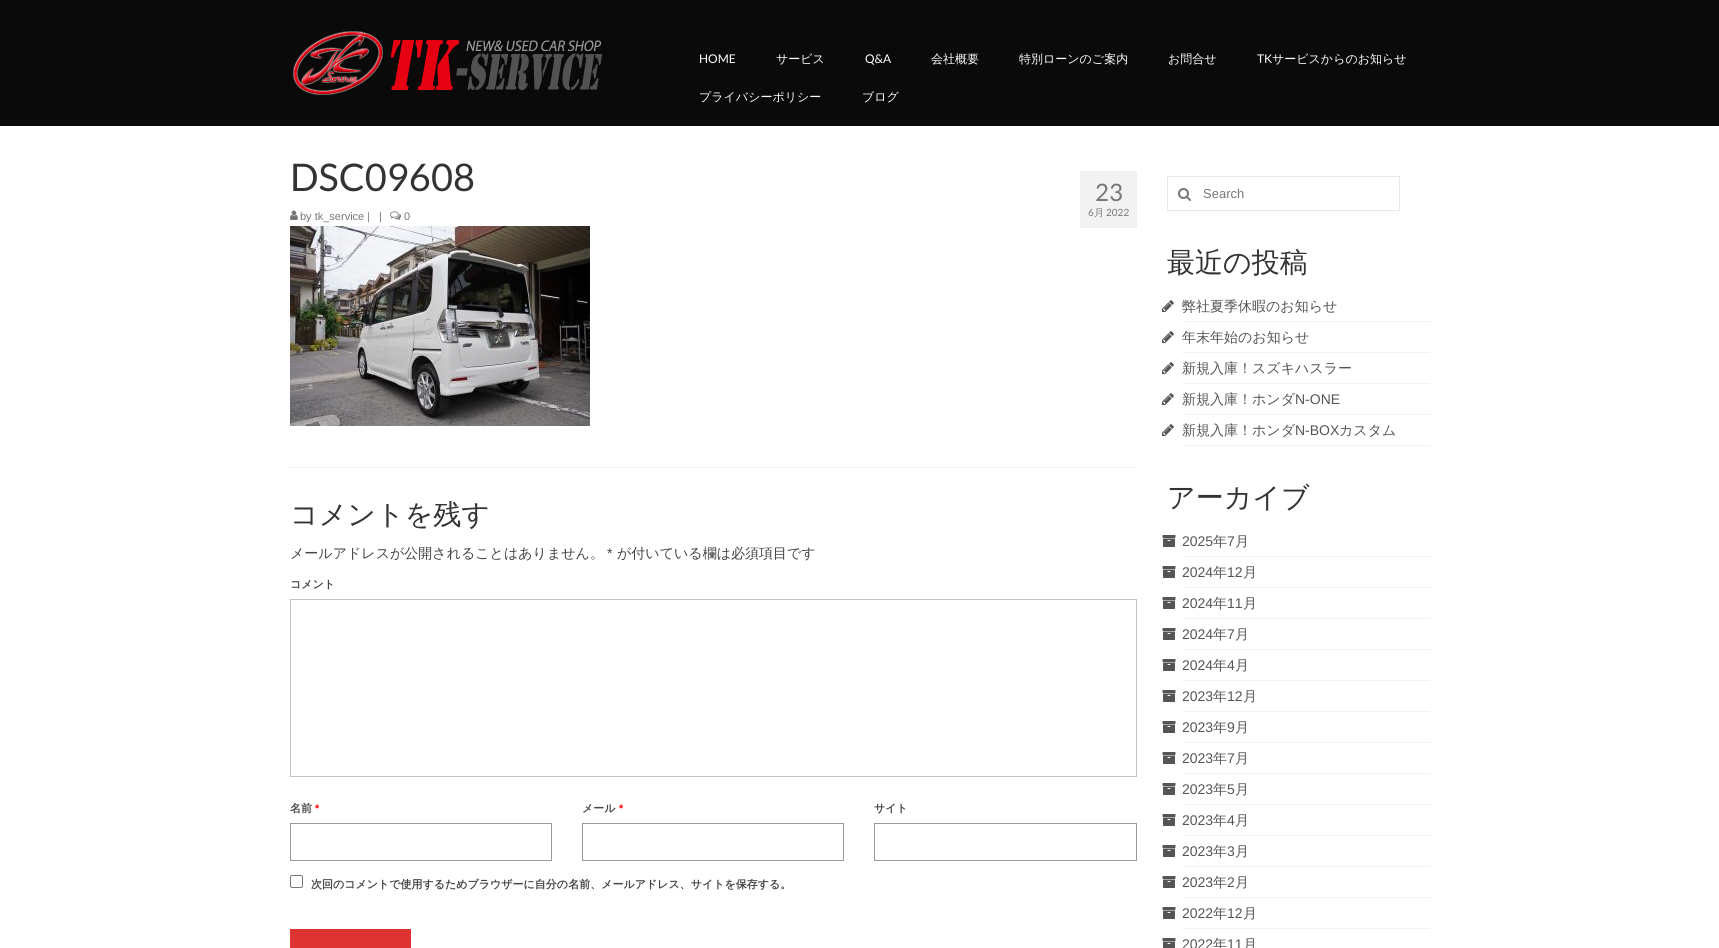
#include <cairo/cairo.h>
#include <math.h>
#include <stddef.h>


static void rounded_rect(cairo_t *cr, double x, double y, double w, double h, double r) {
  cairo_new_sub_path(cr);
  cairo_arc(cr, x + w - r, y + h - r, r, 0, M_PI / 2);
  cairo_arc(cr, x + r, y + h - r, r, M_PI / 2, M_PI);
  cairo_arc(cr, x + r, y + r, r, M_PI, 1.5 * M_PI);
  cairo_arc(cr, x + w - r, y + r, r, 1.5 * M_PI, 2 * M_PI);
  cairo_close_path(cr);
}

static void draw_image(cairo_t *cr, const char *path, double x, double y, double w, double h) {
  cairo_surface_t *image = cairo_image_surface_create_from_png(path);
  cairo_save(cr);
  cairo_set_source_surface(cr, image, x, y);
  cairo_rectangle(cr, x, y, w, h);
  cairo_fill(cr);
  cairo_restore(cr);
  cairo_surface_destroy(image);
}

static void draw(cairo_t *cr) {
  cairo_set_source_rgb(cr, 1, 1, 1);
  cairo_paint(cr);
  cairo_set_source_rgb(cr, 10 / 255.0, 10 / 255.0, 10 / 255.0);
  cairo_rectangle(cr, 0, 0, 1719, 126);
  cairo_fill(cr);
  draw_image(cr, "images/1.png", 293, 31, 309, 64);
  draw_image(cr, "images/2.png", 290, 210, 8, 10);
  draw_image(cr, "images/3.png", 390, 211, 11, 9);
  cairo_set_source_rgb(cr, 242 / 255.0, 242 / 255.0, 242 / 255.0);
  cairo_rectangle(cr, 1080, 171, 57, 57);
  cairo_fill(cr);
  draw_image(cr, "images/4.png", 290, 226, 300, 200);
  cairo_rectangle(cr, 290, 467, 847, 1);
  cairo_fill(cr);
  cairo_rectangle(cr, 290.5, 599.5, 846, 177);
  cairo_set_source_rgb(cr, 195 / 255.0, 195 / 255.0, 195 / 255.0);
  cairo_set_line_width(cr, 1);
  cairo_stroke(cr);
  cairo_rectangle(cr, 290.5, 823.5, 261, 37);
  cairo_set_source_rgb(cr, 153 / 255.0, 153 / 255.0, 153 / 255.0);
  cairo_stroke(cr);
  cairo_rectangle(cr, 582.5, 823.5, 261, 37);
  cairo_stroke(cr);
  cairo_rectangle(cr, 874.5, 823.5, 262, 37);
  cairo_stroke(cr);
  rounded_rect(cr, 290.5, 875.5, 12, 12, 1.5);
  cairo_set_source_rgb(cr, 118 / 255.0, 118 / 255.0, 118 / 255.0);
  cairo_stroke(cr);
  cairo_set_source_rgb(cr, 221 / 255.0, 51 / 255.0, 51 / 255.0);
  cairo_rectangle(cr, 290, 929, 121, 19);
  cairo_fill(cr);
  cairo_rectangle(cr, 1167.5, 176.5, 232, 34);
  cairo_set_source_rgb(cr, 231 / 255.0, 231 / 255.0, 231 / 255.0);
  cairo_stroke(cr);
  draw_image(cr, "images/5.png", 1178, 188, 13, 13);
  cairo_set_source_rgb(cr, 242 / 255.0, 242 / 255.0, 242 / 255.0);
  cairo_rectangle(cr, 1182, 321, 248, 1);
  cairo_fill(cr);
  draw_image(cr, "images/6.png", 1162, 300, 12, 12);
  cairo_rectangle(cr, 1182, 352, 248, 1);
  cairo_fill(cr);
  draw_image(cr, "images/6.png", 1162, 331, 12, 12);
  cairo_rectangle(cr, 1182, 383, 248, 1);
  cairo_fill(cr);
  draw_image(cr, "images/6.png", 1162, 362, 12, 12);
  cairo_rectangle(cr, 1182, 414, 248, 1);
  cairo_fill(cr);
  draw_image(cr, "images/6.png", 1162, 393, 12, 12);
  cairo_rectangle(cr, 1182, 445, 248, 1);
  cairo_fill(cr);
  draw_image(cr, "images/6.png", 1162, 424, 12, 12);
  cairo_rectangle(cr, 1182, 556, 248, 1);
  cairo_fill(cr);
  draw_image(cr, "images/7.png", 1162, 535, 14, 12);
  cairo_rectangle(cr, 1182, 587, 248, 1);
  cairo_fill(cr);
  draw_image(cr, "images/7.png", 1162, 566, 14, 12);
  cairo_rectangle(cr, 1182, 618, 248, 1);
  cairo_fill(cr);
  draw_image(cr, "images/7.png", 1162, 597, 14, 12);
  cairo_rectangle(cr, 1182, 649, 248, 1);
  cairo_fill(cr);
  draw_image(cr, "images/7.png", 1162, 628, 14, 12);
  cairo_rectangle(cr, 1182, 680, 248, 1);
  cairo_fill(cr);
  draw_image(cr, "images/7.png", 1162, 659, 14, 12);
  cairo_rectangle(cr, 1182, 711, 248, 1);
  cairo_fill(cr);
  draw_image(cr, "images/7.png", 1162, 690, 14, 12);
  cairo_rectangle(cr, 1182, 742, 248, 1);
  cairo_fill(cr);
  draw_image(cr, "images/7.png", 1162, 721, 14, 12);
  cairo_rectangle(cr, 1182, 773, 248, 1);
  cairo_fill(cr);
  draw_image(cr, "images/7.png", 1162, 752, 14, 12);
  cairo_rectangle(cr, 1182, 804, 248, 1);
  cairo_fill(cr);
  draw_image(cr, "images/7.png", 1162, 783, 14, 12);
  cairo_rectangle(cr, 1182, 835, 248, 1);
  cairo_fill(cr);
  draw_image(cr, "images/7.png", 1162, 814, 14, 12);
  cairo_rectangle(cr, 1182, 866, 248, 1);
  cairo_fill(cr);
  draw_image(cr, "images/7.png", 1162, 845, 14, 12);
  cairo_rectangle(cr, 1182, 897, 248, 1);
  cairo_fill(cr);
  draw_image(cr, "images/7.png", 1162, 876, 14, 12);
  cairo_rectangle(cr, 1182, 928, 248, 1);
  cairo_fill(cr);
  draw_image(cr, "images/7.png", 1162, 907, 14, 12);
  draw_image(cr, "images/8.png", 1162, 938, 14, 10);
  cairo_select_font_face(cr, "Lato", CAIRO_FONT_SLANT_NORMAL, CAIRO_FONT_WEIGHT_NORMAL);
  cairo_set_font_size(cr, 12);
  cairo_set_source_rgb(cr, 1, 1, 1);
  cairo_move_to(cr, 699, 63);
  cairo_show_text(cr, "HOME");
  cairo_select_font_face(cr, "WenQuanYi Zen Hei Medium", CAIRO_FONT_SLANT_NORMAL, CAIRO_FONT_WEIGHT_NORMAL);
  cairo_move_to(cr, 776, 63);
  cairo_show_text(cr, "サービス");
  cairo_select_font_face(cr, "Lato", CAIRO_FONT_SLANT_NORMAL, CAIRO_FONT_WEIGHT_NORMAL);
  cairo_move_to(cr, 865, 63);
  cairo_show_text(cr, "Q&A");
  cairo_select_font_face(cr, "WenQuanYi Zen Hei Medium", CAIRO_FONT_SLANT_NORMAL, CAIRO_FONT_WEIGHT_NORMAL);
  cairo_move_to(cr, 931, 63);
  cairo_show_text(cr, "会社概要");
  cairo_move_to(cr, 1019, 63);
  cairo_show_text(cr, "特別ローンのご案内");
  cairo_move_to(cr, 1168, 63);
  cairo_show_text(cr, "お問合せ");
  cairo_select_font_face(cr, "Lato", CAIRO_FONT_SLANT_NORMAL, CAIRO_FONT_WEIGHT_NORMAL);
  cairo_move_to(cr, 1257, 63);
  cairo_show_text(cr, "TK");
  cairo_select_font_face(cr, "WenQuanYi Zen Hei Medium", CAIRO_FONT_SLANT_NORMAL, CAIRO_FONT_WEIGHT_NORMAL);
  cairo_move_to(cr, 1272, 63);
  cairo_show_text(cr, "サービスからのお知らせ");
  cairo_move_to(cr, 699, 101);
  cairo_show_text(cr, "プライバシーポリシー");
  cairo_move_to(cr, 862, 101);
  cairo_show_text(cr, "ブログ");
  cairo_select_font_face(cr, "Lato", CAIRO_FONT_SLANT_NORMAL, CAIRO_FONT_WEIGHT_NORMAL);
  cairo_set_font_size(cr, 38);
  cairo_set_source_rgb(cr, 51 / 255.0, 51 / 255.0, 51 / 255.0);
  cairo_move_to(cr, 290, 191);
  cairo_show_text(cr, "DSC09608");
  cairo_select_font_face(cr, "Liberation Sans", CAIRO_FONT_SLANT_NORMAL, CAIRO_FONT_WEIGHT_NORMAL);
  cairo_set_font_size(cr, 11);
  cairo_set_source_rgb(cr, 119 / 255.0, 119 / 255.0, 119 / 255.0);
  cairo_move_to(cr, 300, 220);
  cairo_show_text(cr, "by tk_service |");
  cairo_move_to(cr, 379, 220);
  cairo_show_text(cr, "|");
  cairo_move_to(cr, 404, 220);
  cairo_show_text(cr, "0");
  cairo_select_font_face(cr, "Lato", CAIRO_FONT_SLANT_NORMAL, CAIRO_FONT_WEIGHT_NORMAL);
  cairo_set_font_size(cr, 24);
  cairo_move_to(cr, 1095, 201);
  cairo_show_text(cr, "23");
  cairo_set_font_size(cr, 10);
  cairo_move_to(cr, 1088, 216);
  cairo_show_text(cr, "6");
  cairo_select_font_face(cr, "WenQuanYi Zen Hei Medium", CAIRO_FONT_SLANT_NORMAL, CAIRO_FONT_WEIGHT_NORMAL);
  cairo_move_to(cr, 1094, 216);
  cairo_show_text(cr, "月");
  cairo_select_font_face(cr, "Lato", CAIRO_FONT_SLANT_NORMAL, CAIRO_FONT_WEIGHT_NORMAL);
  cairo_move_to(cr, 1106, 216);
  cairo_show_text(cr, "2022");
  cairo_select_font_face(cr, "WenQuanYi Zen Hei Medium", CAIRO_FONT_SLANT_NORMAL, CAIRO_FONT_WEIGHT_NORMAL);
  cairo_set_font_size(cr, 28);
  cairo_set_source_rgb(cr, 51 / 255.0, 51 / 255.0, 51 / 255.0);
  cairo_move_to(cr, 290, 524);
  cairo_show_text(cr, "コメントを残す");
  cairo_set_font_size(cr, 14);
  cairo_set_source_rgb(cr, 68 / 255.0, 68 / 255.0, 68 / 255.0);
  cairo_move_to(cr, 290, 558);
  cairo_show_text(cr, "メールアドレスが公開されることはありません。");
  cairo_select_font_face(cr, "Liberation Sans", CAIRO_FONT_SLANT_NORMAL, CAIRO_FONT_WEIGHT_NORMAL);
  cairo_move_to(cr, 607, 558);
  cairo_show_text(cr, "*");
  cairo_select_font_face(cr, "WenQuanYi Zen Hei Medium", CAIRO_FONT_SLANT_NORMAL, CAIRO_FONT_WEIGHT_NORMAL);
  cairo_move_to(cr, 617, 558);
  cairo_show_text(cr, "が付いている欄は必須項目です");
  cairo_select_font_face(cr, "WenQuanYi Zen Hei", CAIRO_FONT_SLANT_NORMAL, CAIRO_FONT_WEIGHT_BOLD);
  cairo_set_font_size(cr, 11);
  cairo_move_to(cr, 290, 588);
  cairo_show_text(cr, "コメント");
  cairo_move_to(cr, 290, 812);
  cairo_show_text(cr, "名前");
  cairo_select_font_face(cr, "Liberation Sans", CAIRO_FONT_SLANT_NORMAL, CAIRO_FONT_WEIGHT_BOLD);
  cairo_set_source_rgb(cr, 1, 0, 0);
  cairo_move_to(cr, 315, 812);
  cairo_show_text(cr, "*");
  cairo_select_font_face(cr, "WenQuanYi Zen Hei", CAIRO_FONT_SLANT_NORMAL, CAIRO_FONT_WEIGHT_BOLD);
  cairo_set_source_rgb(cr, 68 / 255.0, 68 / 255.0, 68 / 255.0);
  cairo_move_to(cr, 582, 812);
  cairo_show_text(cr, "メール");
  cairo_select_font_face(cr, "Liberation Sans", CAIRO_FONT_SLANT_NORMAL, CAIRO_FONT_WEIGHT_BOLD);
  cairo_set_source_rgb(cr, 1, 0, 0);
  cairo_move_to(cr, 619, 812);
  cairo_show_text(cr, "*");
  cairo_select_font_face(cr, "WenQuanYi Zen Hei", CAIRO_FONT_SLANT_NORMAL, CAIRO_FONT_WEIGHT_BOLD);
  cairo_set_source_rgb(cr, 68 / 255.0, 68 / 255.0, 68 / 255.0);
  cairo_move_to(cr, 874, 812);
  cairo_show_text(cr, "サイト");
  cairo_move_to(cr, 311, 888);
  cairo_show_text(cr, "次回のコメントで使用するためブラウザーに自分の名前、メールアドレス、サイトを保存する。");
  cairo_select_font_face(cr, "Liberation Sans", CAIRO_FONT_SLANT_NORMAL, CAIRO_FONT_WEIGHT_NORMAL);
  cairo_set_font_size(cr, 13);
  cairo_set_source_rgb(cr, 119 / 255.0, 119 / 255.0, 119 / 255.0);
  cairo_move_to(cr, 1203, 198);
  cairo_show_text(cr, "Search");
  cairo_select_font_face(cr, "WenQuanYi Zen Hei Medium", CAIRO_FONT_SLANT_NORMAL, CAIRO_FONT_WEIGHT_NORMAL);
  cairo_set_font_size(cr, 28);
  cairo_set_source_rgb(cr, 51 / 255.0, 51 / 255.0, 51 / 255.0);
  cairo_move_to(cr, 1167, 272);
  cairo_show_text(cr, "最近の投稿");
  cairo_set_font_size(cr, 14);
  cairo_set_source_rgb(cr, 85 / 255.0, 85 / 255.0, 85 / 255.0);
  cairo_move_to(cr, 1182, 311);
  cairo_show_text(cr, "弊社夏季休暇のお知らせ");
  cairo_move_to(cr, 1182, 342);
  cairo_show_text(cr, "年末年始のお知らせ");
  cairo_move_to(cr, 1182, 373);
  cairo_show_text(cr, "新規入庫！スズキハスラー");
  cairo_move_to(cr, 1182, 404);
  cairo_show_text(cr, "新規入庫！ホンダ");
  cairo_select_font_face(cr, "Liberation Sans", CAIRO_FONT_SLANT_NORMAL, CAIRO_FONT_WEIGHT_NORMAL);
  cairo_move_to(cr, 1295, 404);
  cairo_show_text(cr, "N-ONE");
  cairo_select_font_face(cr, "WenQuanYi Zen Hei Medium", CAIRO_FONT_SLANT_NORMAL, CAIRO_FONT_WEIGHT_NORMAL);
  cairo_move_to(cr, 1182, 435);
  cairo_show_text(cr, "新規入庫！ホンダ");
  cairo_select_font_face(cr, "Liberation Sans", CAIRO_FONT_SLANT_NORMAL, CAIRO_FONT_WEIGHT_NORMAL);
  cairo_move_to(cr, 1295, 435);
  cairo_show_text(cr, "N-BOX");
  cairo_select_font_face(cr, "WenQuanYi Zen Hei Medium", CAIRO_FONT_SLANT_NORMAL, CAIRO_FONT_WEIGHT_NORMAL);
  cairo_move_to(cr, 1339, 435);
  cairo_show_text(cr, "カスタム");
  cairo_set_font_size(cr, 28);
  cairo_set_source_rgb(cr, 51 / 255.0, 51 / 255.0, 51 / 255.0);
  cairo_move_to(cr, 1167, 507);
  cairo_show_text(cr, "アーカイブ");
  cairo_select_font_face(cr, "Liberation Sans", CAIRO_FONT_SLANT_NORMAL, CAIRO_FONT_WEIGHT_NORMAL);
  cairo_set_font_size(cr, 14);
  cairo_set_source_rgb(cr, 85 / 255.0, 85 / 255.0, 85 / 255.0);
  cairo_move_to(cr, 1182, 546);
  cairo_show_text(cr, "2025");
  cairo_select_font_face(cr, "WenQuanYi Zen Hei Medium", CAIRO_FONT_SLANT_NORMAL, CAIRO_FONT_WEIGHT_NORMAL);
  cairo_move_to(cr, 1213, 546);
  cairo_show_text(cr, "年");
  cairo_select_font_face(cr, "Liberation Sans", CAIRO_FONT_SLANT_NORMAL, CAIRO_FONT_WEIGHT_NORMAL);
  cairo_move_to(cr, 1227, 546);
  cairo_show_text(cr, "7");
  cairo_select_font_face(cr, "WenQuanYi Zen Hei Medium", CAIRO_FONT_SLANT_NORMAL, CAIRO_FONT_WEIGHT_NORMAL);
  cairo_move_to(cr, 1235, 546);
  cairo_show_text(cr, "月");
  cairo_select_font_face(cr, "Liberation Sans", CAIRO_FONT_SLANT_NORMAL, CAIRO_FONT_WEIGHT_NORMAL);
  cairo_move_to(cr, 1182, 577);
  cairo_show_text(cr, "2024");
  cairo_select_font_face(cr, "WenQuanYi Zen Hei Medium", CAIRO_FONT_SLANT_NORMAL, CAIRO_FONT_WEIGHT_NORMAL);
  cairo_move_to(cr, 1213, 577);
  cairo_show_text(cr, "年");
  cairo_select_font_face(cr, "Liberation Sans", CAIRO_FONT_SLANT_NORMAL, CAIRO_FONT_WEIGHT_NORMAL);
  cairo_move_to(cr, 1227, 577);
  cairo_show_text(cr, "12");
  cairo_select_font_face(cr, "WenQuanYi Zen Hei Medium", CAIRO_FONT_SLANT_NORMAL, CAIRO_FONT_WEIGHT_NORMAL);
  cairo_move_to(cr, 1243, 577);
  cairo_show_text(cr, "月");
  cairo_select_font_face(cr, "Liberation Sans", CAIRO_FONT_SLANT_NORMAL, CAIRO_FONT_WEIGHT_NORMAL);
  cairo_move_to(cr, 1182, 608);
  cairo_show_text(cr, "2024");
  cairo_select_font_face(cr, "WenQuanYi Zen Hei Medium", CAIRO_FONT_SLANT_NORMAL, CAIRO_FONT_WEIGHT_NORMAL);
  cairo_move_to(cr, 1213, 608);
  cairo_show_text(cr, "年");
  cairo_select_font_face(cr, "Liberation Sans", CAIRO_FONT_SLANT_NORMAL, CAIRO_FONT_WEIGHT_NORMAL);
  cairo_move_to(cr, 1227, 608);
  cairo_show_text(cr, "11");
  cairo_select_font_face(cr, "WenQuanYi Zen Hei Medium", CAIRO_FONT_SLANT_NORMAL, CAIRO_FONT_WEIGHT_NORMAL);
  cairo_move_to(cr, 1243, 608);
  cairo_show_text(cr, "月");
  cairo_select_font_face(cr, "Liberation Sans", CAIRO_FONT_SLANT_NORMAL, CAIRO_FONT_WEIGHT_NORMAL);
  cairo_move_to(cr, 1182, 639);
  cairo_show_text(cr, "2024");
  cairo_select_font_face(cr, "WenQuanYi Zen Hei Medium", CAIRO_FONT_SLANT_NORMAL, CAIRO_FONT_WEIGHT_NORMAL);
  cairo_move_to(cr, 1213, 639);
  cairo_show_text(cr, "年");
  cairo_select_font_face(cr, "Liberation Sans", CAIRO_FONT_SLANT_NORMAL, CAIRO_FONT_WEIGHT_NORMAL);
  cairo_move_to(cr, 1227, 639);
  cairo_show_text(cr, "7");
  cairo_select_font_face(cr, "WenQuanYi Zen Hei Medium", CAIRO_FONT_SLANT_NORMAL, CAIRO_FONT_WEIGHT_NORMAL);
  cairo_move_to(cr, 1235, 639);
  cairo_show_text(cr, "月");
  cairo_select_font_face(cr, "Liberation Sans", CAIRO_FONT_SLANT_NORMAL, CAIRO_FONT_WEIGHT_NORMAL);
  cairo_move_to(cr, 1182, 670);
  cairo_show_text(cr, "2024");
  cairo_select_font_face(cr, "WenQuanYi Zen Hei Medium", CAIRO_FONT_SLANT_NORMAL, CAIRO_FONT_WEIGHT_NORMAL);
  cairo_move_to(cr, 1213, 670);
  cairo_show_text(cr, "年");
  cairo_select_font_face(cr, "Liberation Sans", CAIRO_FONT_SLANT_NORMAL, CAIRO_FONT_WEIGHT_NORMAL);
  cairo_move_to(cr, 1227, 670);
  cairo_show_text(cr, "4");
  cairo_select_font_face(cr, "WenQuanYi Zen Hei Medium", CAIRO_FONT_SLANT_NORMAL, CAIRO_FONT_WEIGHT_NORMAL);
  cairo_move_to(cr, 1235, 670);
  cairo_show_text(cr, "月");
  cairo_select_font_face(cr, "Liberation Sans", CAIRO_FONT_SLANT_NORMAL, CAIRO_FONT_WEIGHT_NORMAL);
  cairo_move_to(cr, 1182, 701);
  cairo_show_text(cr, "2023");
  cairo_select_font_face(cr, "WenQuanYi Zen Hei Medium", CAIRO_FONT_SLANT_NORMAL, CAIRO_FONT_WEIGHT_NORMAL);
  cairo_move_to(cr, 1213, 701);
  cairo_show_text(cr, "年");
  cairo_select_font_face(cr, "Liberation Sans", CAIRO_FONT_SLANT_NORMAL, CAIRO_FONT_WEIGHT_NORMAL);
  cairo_move_to(cr, 1227, 701);
  cairo_show_text(cr, "12");
  cairo_select_font_face(cr, "WenQuanYi Zen Hei Medium", CAIRO_FONT_SLANT_NORMAL, CAIRO_FONT_WEIGHT_NORMAL);
  cairo_move_to(cr, 1243, 701);
  cairo_show_text(cr, "月");
  cairo_select_font_face(cr, "Liberation Sans", CAIRO_FONT_SLANT_NORMAL, CAIRO_FONT_WEIGHT_NORMAL);
  cairo_move_to(cr, 1182, 732);
  cairo_show_text(cr, "2023");
  cairo_select_font_face(cr, "WenQuanYi Zen Hei Medium", CAIRO_FONT_SLANT_NORMAL, CAIRO_FONT_WEIGHT_NORMAL);
  cairo_move_to(cr, 1213, 732);
  cairo_show_text(cr, "年");
  cairo_select_font_face(cr, "Liberation Sans", CAIRO_FONT_SLANT_NORMAL, CAIRO_FONT_WEIGHT_NORMAL);
  cairo_move_to(cr, 1227, 732);
  cairo_show_text(cr, "9");
  cairo_select_font_face(cr, "WenQuanYi Zen Hei Medium", CAIRO_FONT_SLANT_NORMAL, CAIRO_FONT_WEIGHT_NORMAL);
  cairo_move_to(cr, 1235, 732);
  cairo_show_text(cr, "月");
  cairo_select_font_face(cr, "Liberation Sans", CAIRO_FONT_SLANT_NORMAL, CAIRO_FONT_WEIGHT_NORMAL);
  cairo_move_to(cr, 1182, 763);
  cairo_show_text(cr, "2023");
  cairo_select_font_face(cr, "WenQuanYi Zen Hei Medium", CAIRO_FONT_SLANT_NORMAL, CAIRO_FONT_WEIGHT_NORMAL);
  cairo_move_to(cr, 1213, 763);
  cairo_show_text(cr, "年");
  cairo_select_font_face(cr, "Liberation Sans", CAIRO_FONT_SLANT_NORMAL, CAIRO_FONT_WEIGHT_NORMAL);
  cairo_move_to(cr, 1227, 763);
  cairo_show_text(cr, "7");
  cairo_select_font_face(cr, "WenQuanYi Zen Hei Medium", CAIRO_FONT_SLANT_NORMAL, CAIRO_FONT_WEIGHT_NORMAL);
  cairo_move_to(cr, 1235, 763);
  cairo_show_text(cr, "月");
  cairo_select_font_face(cr, "Liberation Sans", CAIRO_FONT_SLANT_NORMAL, CAIRO_FONT_WEIGHT_NORMAL);
  cairo_move_to(cr, 1182, 794);
  cairo_show_text(cr, "2023");
  cairo_select_font_face(cr, "WenQuanYi Zen Hei Medium", CAIRO_FONT_SLANT_NORMAL, CAIRO_FONT_WEIGHT_NORMAL);
  cairo_move_to(cr, 1213, 794);
  cairo_show_text(cr, "年");
  cairo_select_font_face(cr, "Liberation Sans", CAIRO_FONT_SLANT_NORMAL, CAIRO_FONT_WEIGHT_NORMAL);
  cairo_move_to(cr, 1227, 794);
  cairo_show_text(cr, "5");
  cairo_select_font_face(cr, "WenQuanYi Zen Hei Medium", CAIRO_FONT_SLANT_NORMAL, CAIRO_FONT_WEIGHT_NORMAL);
  cairo_move_to(cr, 1235, 794);
  cairo_show_text(cr, "月");
  cairo_select_font_face(cr, "Liberation Sans", CAIRO_FONT_SLANT_NORMAL, CAIRO_FONT_WEIGHT_NORMAL);
  cairo_move_to(cr, 1182, 825);
  cairo_show_text(cr, "2023");
  cairo_select_font_face(cr, "WenQuanYi Zen Hei Medium", CAIRO_FONT_SLANT_NORMAL, CAIRO_FONT_WEIGHT_NORMAL);
  cairo_move_to(cr, 1213, 825);
  cairo_show_text(cr, "年");
  cairo_select_font_face(cr, "Liberation Sans", CAIRO_FONT_SLANT_NORMAL, CAIRO_FONT_WEIGHT_NORMAL);
  cairo_move_to(cr, 1227, 825);
  cairo_show_text(cr, "4");
  cairo_select_font_face(cr, "WenQuanYi Zen Hei Medium", CAIRO_FONT_SLANT_NORMAL, CAIRO_FONT_WEIGHT_NORMAL);
  cairo_move_to(cr, 1235, 825);
  cairo_show_text(cr, "月");
  cairo_select_font_face(cr, "Liberation Sans", CAIRO_FONT_SLANT_NORMAL, CAIRO_FONT_WEIGHT_NORMAL);
  cairo_move_to(cr, 1182, 856);
  cairo_show_text(cr, "2023");
  cairo_select_font_face(cr, "WenQuanYi Zen Hei Medium", CAIRO_FONT_SLANT_NORMAL, CAIRO_FONT_WEIGHT_NORMAL);
  cairo_move_to(cr, 1213, 856);
  cairo_show_text(cr, "年");
  cairo_select_font_face(cr, "Liberation Sans", CAIRO_FONT_SLANT_NORMAL, CAIRO_FONT_WEIGHT_NORMAL);
  cairo_move_to(cr, 1227, 856);
  cairo_show_text(cr, "3");
  cairo_select_font_face(cr, "WenQuanYi Zen Hei Medium", CAIRO_FONT_SLANT_NORMAL, CAIRO_FONT_WEIGHT_NORMAL);
  cairo_move_to(cr, 1235, 856);
  cairo_show_text(cr, "月");
  cairo_select_font_face(cr, "Liberation Sans", CAIRO_FONT_SLANT_NORMAL, CAIRO_FONT_WEIGHT_NORMAL);
  cairo_move_to(cr, 1182, 887);
  cairo_show_text(cr, "2023");
  cairo_select_font_face(cr, "WenQuanYi Zen Hei Medium", CAIRO_FONT_SLANT_NORMAL, CAIRO_FONT_WEIGHT_NORMAL);
  cairo_move_to(cr, 1213, 887);
  cairo_show_text(cr, "年");
  cairo_select_font_face(cr, "Liberation Sans", CAIRO_FONT_SLANT_NORMAL, CAIRO_FONT_WEIGHT_NORMAL);
  cairo_move_to(cr, 1227, 887);
  cairo_show_text(cr, "2");
  cairo_select_font_face(cr, "WenQuanYi Zen Hei Medium", CAIRO_FONT_SLANT_NORMAL, CAIRO_FONT_WEIGHT_NORMAL);
  cairo_move_to(cr, 1235, 887);
  cairo_show_text(cr, "月");
  cairo_select_font_face(cr, "Liberation Sans", CAIRO_FONT_SLANT_NORMAL, CAIRO_FONT_WEIGHT_NORMAL);
  cairo_move_to(cr, 1182, 918);
  cairo_show_text(cr, "2022");
  cairo_select_font_face(cr, "WenQuanYi Zen Hei Medium", CAIRO_FONT_SLANT_NORMAL, CAIRO_FONT_WEIGHT_NORMAL);
  cairo_move_to(cr, 1213, 918);
  cairo_show_text(cr, "年");
  cairo_select_font_face(cr, "Liberation Sans", CAIRO_FONT_SLANT_NORMAL, CAIRO_FONT_WEIGHT_NORMAL);
  cairo_move_to(cr, 1227, 918);
  cairo_show_text(cr, "12");
  cairo_select_font_face(cr, "WenQuanYi Zen Hei Medium", CAIRO_FONT_SLANT_NORMAL, CAIRO_FONT_WEIGHT_NORMAL);
  cairo_move_to(cr, 1243, 918);
  cairo_show_text(cr, "月");
  cairo_select_font_face(cr, "Liberation Sans", CAIRO_FONT_SLANT_NORMAL, CAIRO_FONT_WEIGHT_NORMAL);
  cairo_move_to(cr, 1182, 949);
  cairo_show_text(cr, "2022");
  cairo_select_font_face(cr, "WenQuanYi Zen Hei Medium", CAIRO_FONT_SLANT_NORMAL, CAIRO_FONT_WEIGHT_NORMAL);
  cairo_move_to(cr, 1213, 949);
  cairo_show_text(cr, "年");
  cairo_select_font_face(cr, "Liberation Sans", CAIRO_FONT_SLANT_NORMAL, CAIRO_FONT_WEIGHT_NORMAL);
  cairo_move_to(cr, 1227, 949);
  cairo_show_text(cr, "11");
  cairo_select_font_face(cr, "WenQuanYi Zen Hei Medium", CAIRO_FONT_SLANT_NORMAL, CAIRO_FONT_WEIGHT_NORMAL);
  cairo_move_to(cr, 1243, 949);
  cairo_show_text(cr, "月");
}

int main(void) {
  cairo_surface_t *surface = cairo_image_surface_create(CAIRO_FORMAT_RGB24, 1719, 948);
  cairo_t *cr = cairo_create(surface);
  cairo_font_options_t *options = cairo_font_options_create();
  cairo_font_options_set_hint_metrics(options, CAIRO_HINT_METRICS_OFF);
  cairo_font_options_set_hint_style(options, CAIRO_HINT_STYLE_NONE);
  cairo_set_font_options(cr, options);
  cairo_set_miter_limit(cr, 4);
  draw(cr);
  cairo_surface_write_to_png(surface, "out.png");
  cairo_font_options_destroy(options);
  cairo_destroy(cr);
  cairo_surface_destroy(surface);
  return 0;
}
